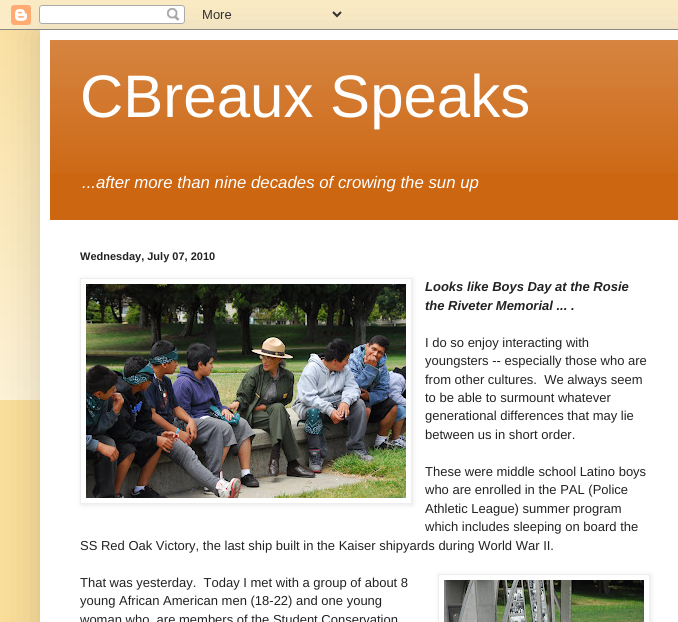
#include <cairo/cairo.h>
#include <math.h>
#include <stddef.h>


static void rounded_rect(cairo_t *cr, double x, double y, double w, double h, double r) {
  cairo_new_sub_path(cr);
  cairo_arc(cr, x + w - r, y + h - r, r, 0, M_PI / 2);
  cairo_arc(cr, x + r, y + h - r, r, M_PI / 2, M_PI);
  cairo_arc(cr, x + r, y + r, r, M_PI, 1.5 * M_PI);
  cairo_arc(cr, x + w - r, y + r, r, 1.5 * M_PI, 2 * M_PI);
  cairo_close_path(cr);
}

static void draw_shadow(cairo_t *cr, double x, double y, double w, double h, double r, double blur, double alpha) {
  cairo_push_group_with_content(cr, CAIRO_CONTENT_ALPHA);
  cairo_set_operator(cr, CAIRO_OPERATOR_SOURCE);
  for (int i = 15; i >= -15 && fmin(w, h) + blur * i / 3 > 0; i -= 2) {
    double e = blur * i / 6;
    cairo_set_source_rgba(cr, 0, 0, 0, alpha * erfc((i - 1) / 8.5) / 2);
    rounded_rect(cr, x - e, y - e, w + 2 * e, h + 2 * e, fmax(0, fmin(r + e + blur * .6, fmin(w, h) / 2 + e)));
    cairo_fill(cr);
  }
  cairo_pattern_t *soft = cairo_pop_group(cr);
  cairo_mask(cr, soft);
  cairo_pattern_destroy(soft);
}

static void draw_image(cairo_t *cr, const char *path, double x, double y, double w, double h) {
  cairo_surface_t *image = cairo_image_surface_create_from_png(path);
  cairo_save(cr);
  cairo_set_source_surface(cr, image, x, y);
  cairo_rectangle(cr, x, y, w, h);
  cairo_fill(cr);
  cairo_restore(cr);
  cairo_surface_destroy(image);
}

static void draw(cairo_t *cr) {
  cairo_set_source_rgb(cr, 249 / 255.0, 221 / 255.0, 153 / 255.0);
  cairo_paint(cr);
  draw_image(cr, "images/1.png", 0, 0, 678, 400);
  cairo_set_source_rgb(cr, 0, 0, 0);
  draw_shadow(cr, 40, 30, 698, 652, 0, 20, 0.15);
  draw_image(cr, "images/2.png", 0, 0, 678, 30);
  cairo_set_source_rgb(cr, 1, 1, 1);
  cairo_rectangle(cr, 40, 30, 638, 592);
  cairo_fill(cr);
  cairo_set_source_rgb(cr, 204 / 255.0, 102 / 255.0, 17 / 255.0);
  cairo_rectangle(cr, 50, 40, 628, 180);
  cairo_fill(cr);
  draw_image(cr, "images/3.png", 50, 40, 628, 133);
  cairo_save(cr);
  cairo_set_fill_rule(cr, CAIRO_FILL_RULE_EVEN_ODD);
  cairo_new_path(cr);
  cairo_move_to(cr, 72, 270);
  cairo_line_to(cr, 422, 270);
  cairo_line_to(cr, 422, 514);
  cairo_line_to(cr, 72, 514);
  cairo_close_path(cr);
  cairo_move_to(cr, 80, 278);
  cairo_line_to(cr, 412, 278);
  cairo_line_to(cr, 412, 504);
  cairo_line_to(cr, 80, 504);
  cairo_close_path(cr);
  cairo_clip(cr);
  cairo_set_source_rgb(cr, 0, 0, 0);
  draw_shadow(cr, 81, 279, 332, 226, 0, 2.5, 0.1);
  cairo_restore(cr);
  cairo_rectangle(cr, 80.5, 278.5, 331, 225);
  cairo_set_source_rgb(cr, 238 / 255.0, 238 / 255.0, 238 / 255.0);
  cairo_set_line_width(cr, 1);
  cairo_stroke(cr);
  draw_image(cr, "images/4.png", 86, 284, 320, 214);
  cairo_save(cr);
  cairo_set_fill_rule(cr, CAIRO_FILL_RULE_EVEN_ODD);
  cairo_new_path(cr);
  cairo_move_to(cr, 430, 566);
  cairo_line_to(cr, 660, 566);
  cairo_line_to(cr, 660, 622);
  cairo_line_to(cr, 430, 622);
  cairo_close_path(cr);
  cairo_move_to(cr, 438, 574);
  cairo_line_to(cr, 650, 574);
  cairo_line_to(cr, 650, 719);
  cairo_line_to(cr, 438, 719);
  cairo_close_path(cr);
  cairo_clip(cr);
  cairo_set_source_rgb(cr, 0, 0, 0);
  draw_shadow(cr, 439, 575, 212, 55, 0, 2.5, 0.1);
  cairo_restore(cr);
  cairo_rectangle(cr, 438.5, 574.5, 211, 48);
  cairo_stroke(cr);
  draw_image(cr, "images/5.png", 444, 580, 200, 42);
  cairo_select_font_face(cr, "Liberation Sans", CAIRO_FONT_SLANT_NORMAL, CAIRO_FONT_WEIGHT_NORMAL);
  cairo_set_font_size(cr, 60);
  cairo_set_source_rgb(cr, 1, 1, 1);
  cairo_move_to(cr, 80, 117);
  cairo_show_text(cr, "CBreaux Speaks");
  cairo_select_font_face(cr, "Liberation Sans", CAIRO_FONT_SLANT_ITALIC, CAIRO_FONT_WEIGHT_NORMAL);
  cairo_set_font_size(cr, 16.8);
  cairo_move_to(cr, 82, 188);
  cairo_show_text(cr, "...after more than nine decades of crowing the sun up");
  cairo_select_font_face(cr, "Liberation Sans", CAIRO_FONT_SLANT_NORMAL, CAIRO_FONT_WEIGHT_BOLD);
  cairo_set_font_size(cr, 11);
  cairo_set_source_rgb(cr, 34 / 255.0, 34 / 255.0, 34 / 255.0);
  cairo_move_to(cr, 80, 260);
  cairo_show_text(cr, "Wednesday, July 07, 2010");
  cairo_select_font_face(cr, "Liberation Sans", CAIRO_FONT_SLANT_ITALIC, CAIRO_FONT_WEIGHT_BOLD);
  cairo_set_font_size(cr, 13);
  cairo_move_to(cr, 425, 291);
  cairo_show_text(cr, "Looks like Boys Day at the Rosie");
  cairo_move_to(cr, 425, 310);
  cairo_show_text(cr, "the Riveter Memorial ... .");
  cairo_select_font_face(cr, "Liberation Sans", CAIRO_FONT_SLANT_NORMAL, CAIRO_FONT_WEIGHT_NORMAL);
  cairo_move_to(cr, 425, 347);
  cairo_show_text(cr, "I do so enjoy interacting with");
  cairo_move_to(cr, 425, 365);
  cairo_show_text(cr, "youngsters -- especially those who are");
  cairo_move_to(cr, 425, 384);
  cairo_show_text(cr, "from other cultures.  We always seem");
  cairo_move_to(cr, 425, 402);
  cairo_show_text(cr, "to be able to surmount whatever");
  cairo_move_to(cr, 425, 420);
  cairo_show_text(cr, "generational differences that may lie");
  cairo_move_to(cr, 425, 439);
  cairo_show_text(cr, "between us in short order.");
  cairo_move_to(cr, 425, 476);
  cairo_show_text(cr, "These were middle school Latino boys");
  cairo_move_to(cr, 425, 494);
  cairo_show_text(cr, "who are enrolled in the PAL (Police");
  cairo_move_to(cr, 425, 513);
  cairo_show_text(cr, "Athletic League) summer program");
  cairo_move_to(cr, 425, 531);
  cairo_show_text(cr, "which includes sleeping on board the");
  cairo_move_to(cr, 80, 550);
  cairo_show_text(cr, "SS Red Oak Victory, the last ship built in the Kaiser shipyards during World War II.");
  cairo_move_to(cr, 80, 587);
  cairo_show_text(cr, "That was yesterday.  Today I met with a group of about 8");
  cairo_move_to(cr, 80, 605);
  cairo_show_text(cr, "young African American men (18-22) and one young");
  cairo_move_to(cr, 80, 624);
  cairo_show_text(cr, "woman who  are members of the Student Conservation");
}

int main(void) {
  cairo_surface_t *surface = cairo_image_surface_create(CAIRO_FORMAT_RGB24, 678, 622);
  cairo_t *cr = cairo_create(surface);
  cairo_font_options_t *options = cairo_font_options_create();
  cairo_font_options_set_hint_metrics(options, CAIRO_HINT_METRICS_OFF);
  cairo_font_options_set_hint_style(options, CAIRO_HINT_STYLE_NONE);
  cairo_set_font_options(cr, options);
  cairo_set_miter_limit(cr, 4);
  draw(cr);
  cairo_surface_write_to_png(surface, "out.png");
  cairo_font_options_destroy(options);
  cairo_destroy(cr);
  cairo_surface_destroy(surface);
  return 0;
}
